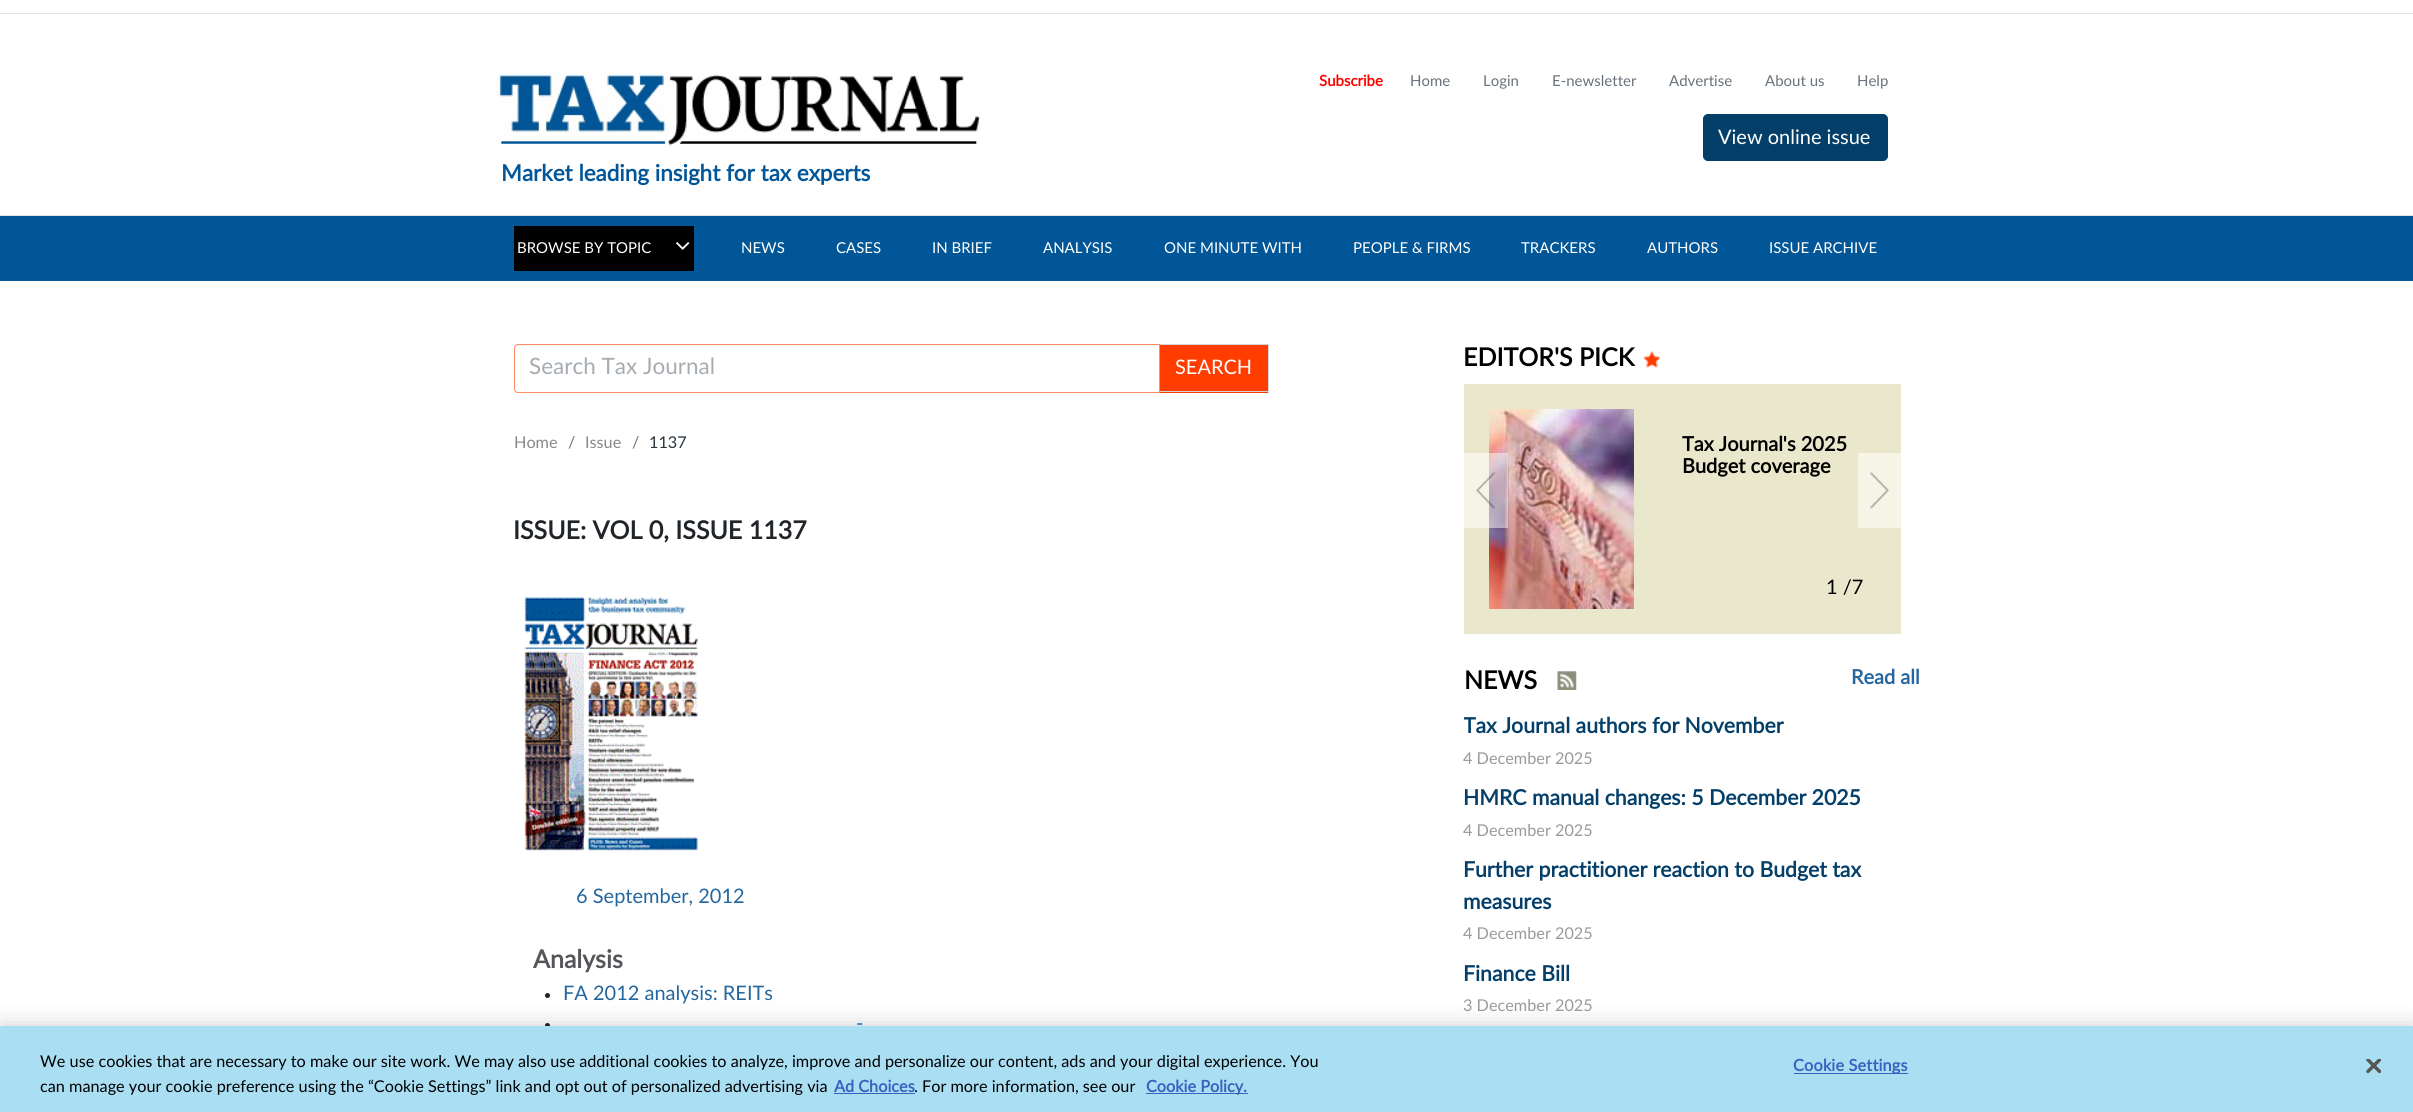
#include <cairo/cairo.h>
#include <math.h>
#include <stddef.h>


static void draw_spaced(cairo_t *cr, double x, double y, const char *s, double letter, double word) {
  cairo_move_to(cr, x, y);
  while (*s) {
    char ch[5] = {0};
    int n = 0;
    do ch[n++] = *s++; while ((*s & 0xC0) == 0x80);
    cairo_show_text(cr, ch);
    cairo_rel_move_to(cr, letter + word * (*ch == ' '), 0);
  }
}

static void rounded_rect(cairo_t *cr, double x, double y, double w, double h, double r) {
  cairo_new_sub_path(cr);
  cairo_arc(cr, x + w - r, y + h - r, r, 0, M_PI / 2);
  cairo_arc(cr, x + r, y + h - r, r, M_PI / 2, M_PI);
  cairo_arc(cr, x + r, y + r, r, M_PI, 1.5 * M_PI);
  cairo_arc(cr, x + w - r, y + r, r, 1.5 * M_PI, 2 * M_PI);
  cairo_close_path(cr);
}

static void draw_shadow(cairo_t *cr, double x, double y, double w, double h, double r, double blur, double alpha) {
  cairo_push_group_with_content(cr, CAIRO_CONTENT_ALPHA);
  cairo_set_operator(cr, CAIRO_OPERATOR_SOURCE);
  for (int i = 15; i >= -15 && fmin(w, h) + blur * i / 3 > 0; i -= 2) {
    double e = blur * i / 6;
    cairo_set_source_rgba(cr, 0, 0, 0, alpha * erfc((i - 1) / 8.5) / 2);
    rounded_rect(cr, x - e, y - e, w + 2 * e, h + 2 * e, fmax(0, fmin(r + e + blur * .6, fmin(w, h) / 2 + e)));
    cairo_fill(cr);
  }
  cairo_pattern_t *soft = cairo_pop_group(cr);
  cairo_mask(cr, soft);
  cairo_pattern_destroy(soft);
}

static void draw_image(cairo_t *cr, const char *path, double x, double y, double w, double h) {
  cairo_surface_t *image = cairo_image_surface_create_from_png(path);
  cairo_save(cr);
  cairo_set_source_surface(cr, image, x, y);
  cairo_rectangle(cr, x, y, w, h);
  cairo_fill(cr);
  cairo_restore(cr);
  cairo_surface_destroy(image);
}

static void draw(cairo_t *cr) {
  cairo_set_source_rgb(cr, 1, 1, 1);
  cairo_paint(cr);
  cairo_set_source_rgb(cr, 222 / 255.0, 226 / 255.0, 230 / 255.0);
  cairo_rectangle(cr, 0, 13, 2413, 1);
  cairo_fill(cr);
  cairo_rectangle(cr, 0, 215, 2413, 1);
  cairo_fill(cr);
  cairo_set_source_rgb(cr, 4 / 255.0, 63 / 255.0, 105 / 255.0);
  rounded_rect(cr, 1703.5, 114.5, 184, 46, 4.5);
  cairo_fill_preserve(cr);
  cairo_set_line_width(cr, 1);
  cairo_stroke(cr);
  draw_image(cr, "images/1.png", 495, 65, 486, 81);
  cairo_set_source_rgb(cr, 1 / 255.0, 86 / 255.0, 151 / 255.0);
  cairo_rectangle(cr, 0, 216, 2413, 65);
  cairo_fill(cr);
  cairo_set_source_rgb(cr, 0, 0, 0);
  cairo_rectangle(cr, 514, 226, 180, 45);
  cairo_fill(cr);
  draw_image(cr, "images/2.png", 676, 242, 14, 8);
  cairo_set_source_rgb(cr, 244 / 255.0, 244 / 255.0, 244 / 255.0);
  cairo_new_path(cr);
  cairo_move_to(cr, 518, 346);
  cairo_line_to(cr, 1159, 346);
  cairo_line_to(cr, 1159, 345);
  cairo_line_to(cr, 518, 345);
  cairo_curve_to(cr, 515, 345, 515, 347, 515, 349);
  cairo_curve_to(cr, 515, 347, 516, 346, 518, 346);
  cairo_close_path(cr);
  cairo_fill(cr);
  cairo_new_path(cr);
  cairo_move_to(cr, 518, 344.5);
  cairo_line_to(cr, 1159.5, 344.5);
  cairo_line_to(cr, 1159.5, 392.5);
  cairo_line_to(cr, 518, 392.5);
  cairo_curve_to(cr, 516, 392.5, 514.5, 391, 514.5, 389);
  cairo_line_to(cr, 514.5, 348);
  cairo_curve_to(cr, 514.5, 346, 516, 344.5, 518, 344.5);
  cairo_close_path(cr);
  cairo_set_source_rgb(cr, 1, 139 / 255.0, 102 / 255.0);
  cairo_stroke(cr);
  cairo_set_source_rgb(cr, 1, 61 / 255.0, 0);
  cairo_rectangle(cr, 1160, 345, 108, 48);
  cairo_fill(cr);
  cairo_set_source_rgb(cr, 206 / 255.0, 212 / 255.0, 218 / 255.0);
  cairo_rectangle(cr, 1160, 344, 109, 1);
  cairo_fill(cr);
  cairo_rectangle(cr, 1268, 344, 1, 49);
  cairo_fill(cr);
  cairo_rectangle(cr, 1160, 391, 109, 1);
  cairo_fill(cr);
  draw_image(cr, "images/3.png", 524, 597, 174, 254);
  cairo_set_source_rgb(cr, 33 / 255.0, 37 / 255.0, 41 / 255.0);
  cairo_arc(cr, 547.5, 995.5, 2.5, 0, 2 * M_PI);
  cairo_fill(cr);
  cairo_arc(cr, 547.5, 1025.5, 2.5, 0, 2 * M_PI);
  cairo_fill(cr);
  draw_image(cr, "images/4.png", 1643, 351, 17, 17);
  cairo_set_source_rgb(cr, 234 / 255.0, 232 / 255.0, 204 / 255.0);
  cairo_rectangle(cr, 1464, 384, 437, 250);
  cairo_fill(cr);
  draw_image(cr, "images/6.png", 1489, 409, 145, 200);
  cairo_set_source_rgba(cr, 1, 1, 1, 0.5);
  cairo_rectangle(cr, 1464, 453, 44, 75);
  cairo_fill(cr);
  draw_image(cr, "images/5.png", 1476, 472, 19, 37);
  cairo_set_source_rgb(cr, 245 / 255.0, 244 / 255.0, 230 / 255.0);
  cairo_rectangle(cr, 1858, 453, 43, 75);
  cairo_fill(cr);
  draw_image(cr, "images/7.png", 1870, 472, 19, 37);
  draw_image(cr, "images/8.png", 1557, 671, 20, 19);
  cairo_set_source_rgb(cr, 0, 0, 0);
  draw_shadow(cr, 0, 1026, 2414, 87, 0, 11, 0.2);
  cairo_set_source_rgb(cr, 170 / 255.0, 222 / 255.0, 243 / 255.0);
  cairo_rectangle(cr, 0, 1026, 2413, 86);
  cairo_fill(cr);
  cairo_set_source_rgb(cr, 56 / 255.0, 96 / 255.0, 190 / 255.0);
  cairo_rectangle(cr, 834, 1093, 81, 1);
  cairo_fill(cr);
  cairo_rectangle(cr, 1146, 1093, 102, 1);
  cairo_fill(cr);
  cairo_rectangle(cr, 1794, 1073, 114, 1);
  cairo_fill(cr);
  draw_image(cr, "images/9.png", 2366, 1059, 15, 15);
  cairo_select_font_face(cr, "Lato", CAIRO_FONT_SLANT_NORMAL, CAIRO_FONT_WEIGHT_BOLD);
  cairo_set_font_size(cr, 15);
  cairo_set_source_rgb(cr, 1, 0, 0);
  cairo_move_to(cr, 1319, 86);
  cairo_show_text(cr, "Subscribe");
  cairo_select_font_face(cr, "Lato", CAIRO_FONT_SLANT_NORMAL, CAIRO_FONT_WEIGHT_NORMAL);
  cairo_set_source_rgb(cr, 105 / 255.0, 114 / 255.0, 123 / 255.0);
  cairo_move_to(cr, 1410, 86);
  cairo_show_text(cr, "Home");
  cairo_move_to(cr, 1483, 86);
  cairo_show_text(cr, "Login");
  cairo_move_to(cr, 1552, 86);
  cairo_show_text(cr, "E-newsletter");
  cairo_move_to(cr, 1669, 86);
  cairo_show_text(cr, "Advertise");
  cairo_move_to(cr, 1765, 86);
  cairo_show_text(cr, "About us");
  cairo_move_to(cr, 1857, 86);
  cairo_show_text(cr, "Help");
  cairo_set_font_size(cr, 20);
  cairo_set_source_rgb(cr, 1, 1, 1);
  cairo_move_to(cr, 1718, 144);
  cairo_show_text(cr, "View online issue");
  cairo_select_font_face(cr, "Lato", CAIRO_FONT_SLANT_NORMAL, CAIRO_FONT_WEIGHT_BOLD);
  cairo_set_font_size(cr, 22.5);
  cairo_set_source_rgb(cr, 1 / 255.0, 86 / 255.0, 153 / 255.0);
  cairo_move_to(cr, 501, 181);
  cairo_show_text(cr, "Market leading insight for tax experts");
  cairo_select_font_face(cr, "Lato", CAIRO_FONT_SLANT_NORMAL, CAIRO_FONT_WEIGHT_NORMAL);
  cairo_set_font_size(cr, 15);
  cairo_set_source_rgb(cr, 1, 1, 1);
  cairo_move_to(cr, 517, 253);
  cairo_show_text(cr, "BROWSE BY TOPIC");
  cairo_move_to(cr, 741, 253);
  cairo_show_text(cr, "NEWS");
  cairo_move_to(cr, 836, 253);
  cairo_show_text(cr, "CASES");
  cairo_move_to(cr, 932, 253);
  cairo_show_text(cr, "IN BRIEF");
  cairo_move_to(cr, 1043, 253);
  cairo_show_text(cr, "ANALYSIS");
  cairo_move_to(cr, 1164, 253);
  cairo_show_text(cr, "ONE MINUTE WITH");
  cairo_move_to(cr, 1353, 253);
  cairo_show_text(cr, "PEOPLE & FIRMS");
  cairo_move_to(cr, 1521, 253);
  cairo_show_text(cr, "TRACKERS");
  cairo_move_to(cr, 1647, 253);
  cairo_show_text(cr, "AUTHORS");
  cairo_move_to(cr, 1769, 253);
  cairo_show_text(cr, "ISSUE ARCHIVE");
  cairo_set_font_size(cr, 22.5);
  cairo_set_source_rgb(cr, 167 / 255.0, 172 / 255.0, 177 / 255.0);
  cairo_move_to(cr, 529, 374);
  cairo_show_text(cr, "Search Tax Journal");
  cairo_set_font_size(cr, 20);
  cairo_set_source_rgb(cr, 1, 1, 1);
  cairo_move_to(cr, 1175, 374);
  cairo_show_text(cr, "SEARCH");
  cairo_set_font_size(cr, 16.25);
  cairo_set_source_rgb(cr, 136 / 255.0, 136 / 255.0, 136 / 255.0);
  cairo_move_to(cr, 514, 448);
  cairo_show_text(cr, "Home");
  cairo_set_source_rgb(cr, 105 / 255.0, 114 / 255.0, 123 / 255.0);
  cairo_move_to(cr, 568, 448);
  cairo_show_text(cr, "/");
  cairo_set_source_rgb(cr, 136 / 255.0, 136 / 255.0, 136 / 255.0);
  cairo_move_to(cr, 585, 448);
  cairo_show_text(cr, "Issue");
  cairo_set_source_rgb(cr, 105 / 255.0, 114 / 255.0, 123 / 255.0);
  cairo_move_to(cr, 632, 448);
  cairo_show_text(cr, "/");
  cairo_set_source_rgb(cr, 43 / 255.0, 53 / 255.0, 60 / 255.0);
  cairo_move_to(cr, 649, 448);
  cairo_show_text(cr, "1137");
  cairo_select_font_face(cr, "Lato", CAIRO_FONT_SLANT_NORMAL, CAIRO_FONT_WEIGHT_BOLD);
  cairo_set_font_size(cr, 25);
  cairo_set_source_rgb(cr, 33 / 255.0, 37 / 255.0, 41 / 255.0);
  cairo_move_to(cr, 513, 539);
  cairo_show_text(cr, "ISSUE: VOL 0, ISSUE 1137");
  cairo_select_font_face(cr, "Lato", CAIRO_FONT_SLANT_NORMAL, CAIRO_FONT_WEIGHT_NORMAL);
  cairo_set_font_size(cr, 20);
  cairo_set_source_rgb(cr, 37 / 255.0, 102 / 255.0, 158 / 255.0);
  cairo_move_to(cr, 576, 903);
  cairo_show_text(cr, "6 September, 2012");
  cairo_select_font_face(cr, "Lato", CAIRO_FONT_SLANT_NORMAL, CAIRO_FONT_WEIGHT_BOLD);
  cairo_set_font_size(cr, 25);
  cairo_set_source_rgb(cr, 84 / 255.0, 86 / 255.0, 90 / 255.0);
  cairo_move_to(cr, 533, 968);
  cairo_show_text(cr, "Analysis");
  cairo_select_font_face(cr, "Lato", CAIRO_FONT_SLANT_NORMAL, CAIRO_FONT_WEIGHT_NORMAL);
  cairo_set_font_size(cr, 20);
  cairo_set_source_rgb(cr, 37 / 255.0, 102 / 255.0, 158 / 255.0);
  cairo_move_to(cr, 563, 1000);
  cairo_show_text(cr, "FA 2012 analysis: REITs");
  cairo_move_to(cr, 856, 1030);
  cairo_show_text(cr, "-");
  cairo_select_font_face(cr, "Lato", CAIRO_FONT_SLANT_NORMAL, CAIRO_FONT_WEIGHT_BOLD);
  cairo_set_font_size(cr, 25);
  cairo_set_source_rgb(cr, 0, 0, 0);
  cairo_move_to(cr, 1463, 366);
  cairo_show_text(cr, "EDITOR'S PICK");
  cairo_set_font_size(cr, 20);
  cairo_move_to(cr, 1682, 451);
  cairo_show_text(cr, "Tax Journal's 2025");
  cairo_move_to(cr, 1682, 473);
  cairo_show_text(cr, "Budget coverage");
  cairo_select_font_face(cr, "Lato", CAIRO_FONT_SLANT_NORMAL, CAIRO_FONT_WEIGHT_NORMAL);
  cairo_move_to(cr, 1826, 594);
  cairo_show_text(cr, "1 /7");
  cairo_select_font_face(cr, "Lato", CAIRO_FONT_SLANT_NORMAL, CAIRO_FONT_WEIGHT_BOLD);
  cairo_set_font_size(cr, 25);
  cairo_move_to(cr, 1464, 689);
  cairo_show_text(cr, "NEWS");
  cairo_set_font_size(cr, 20);
  cairo_set_source_rgb(cr, 37 / 255.0, 102 / 255.0, 158 / 255.0);
  cairo_move_to(cr, 1851, 684);
  cairo_show_text(cr, "Read all");
  cairo_save(cr);
  cairo_rectangle(cr, 1464, 711, 437, 32);
  cairo_clip(cr);
  cairo_set_font_size(cr, 21.25);
  cairo_set_source_rgb(cr, 4 / 255.0, 63 / 255.0, 105 / 255.0);
  cairo_move_to(cr, 1463, 733);
  cairo_show_text(cr, "Tax Journal authors for November");
  cairo_restore(cr);
  cairo_select_font_face(cr, "Lato", CAIRO_FONT_SLANT_NORMAL, CAIRO_FONT_WEIGHT_NORMAL);
  cairo_set_font_size(cr, 16.25);
  cairo_set_source_rgb(cr, 152 / 255.0, 154 / 255.0, 157 / 255.0);
  cairo_move_to(cr, 1463, 764);
  cairo_show_text(cr, "4 December 2025");
  cairo_select_font_face(cr, "Lato", CAIRO_FONT_SLANT_NORMAL, CAIRO_FONT_WEIGHT_BOLD);
  cairo_set_font_size(cr, 21.25);
  cairo_set_source_rgb(cr, 4 / 255.0, 63 / 255.0, 105 / 255.0);
  cairo_move_to(cr, 1463, 805);
  cairo_show_text(cr, "HMRC manual changes: 5 December 2025");
  cairo_select_font_face(cr, "Lato", CAIRO_FONT_SLANT_NORMAL, CAIRO_FONT_WEIGHT_NORMAL);
  cairo_set_font_size(cr, 16.25);
  cairo_set_source_rgb(cr, 152 / 255.0, 154 / 255.0, 157 / 255.0);
  cairo_move_to(cr, 1463, 836);
  cairo_show_text(cr, "4 December 2025");
  cairo_select_font_face(cr, "Lato", CAIRO_FONT_SLANT_NORMAL, CAIRO_FONT_WEIGHT_BOLD);
  cairo_set_font_size(cr, 21.25);
  cairo_set_source_rgb(cr, 4 / 255.0, 63 / 255.0, 105 / 255.0);
  cairo_move_to(cr, 1463, 877);
  cairo_show_text(cr, "Further practitioner reaction to Budget tax");
  cairo_move_to(cr, 1463, 909);
  cairo_show_text(cr, "measures");
  cairo_select_font_face(cr, "Lato", CAIRO_FONT_SLANT_NORMAL, CAIRO_FONT_WEIGHT_NORMAL);
  cairo_set_font_size(cr, 16.25);
  cairo_set_source_rgb(cr, 152 / 255.0, 154 / 255.0, 157 / 255.0);
  cairo_move_to(cr, 1463, 939);
  cairo_show_text(cr, "4 December 2025");
  cairo_select_font_face(cr, "Lato", CAIRO_FONT_SLANT_NORMAL, CAIRO_FONT_WEIGHT_BOLD);
  cairo_set_font_size(cr, 21.25);
  cairo_set_source_rgb(cr, 4 / 255.0, 63 / 255.0, 105 / 255.0);
  cairo_move_to(cr, 1463, 981);
  cairo_show_text(cr, "Finance Bill");
  cairo_select_font_face(cr, "Lato", CAIRO_FONT_SLANT_NORMAL, CAIRO_FONT_WEIGHT_NORMAL);
  cairo_set_font_size(cr, 16.25);
  cairo_set_source_rgb(cr, 152 / 255.0, 154 / 255.0, 157 / 255.0);
  cairo_move_to(cr, 1463, 1011);
  cairo_show_text(cr, "3 December 2025");
  cairo_set_source_rgb(cr, 0, 0, 0);
  cairo_move_to(cr, 40, 1067);
  cairo_show_text(cr, "We use cookies that are necessary to make our site work. We may also use additional cookies to analyze, improve and personalize our content, ads and your digital experience. You");
  cairo_move_to(cr, 40, 1092);
  cairo_show_text(cr, "can manage your cookie preference using the “Cookie Settings” link and opt out of personalized advertising via");
  cairo_select_font_face(cr, "Lato", CAIRO_FONT_SLANT_NORMAL, CAIRO_FONT_WEIGHT_BOLD);
  cairo_set_source_rgb(cr, 56 / 255.0, 96 / 255.0, 190 / 255.0);
  cairo_move_to(cr, 834, 1092);
  cairo_show_text(cr, "Ad Choices");
  cairo_select_font_face(cr, "Lato", CAIRO_FONT_SLANT_NORMAL, CAIRO_FONT_WEIGHT_NORMAL);
  cairo_set_source_rgb(cr, 0, 0, 0);
  cairo_move_to(cr, 914, 1092);
  cairo_show_text(cr, ". For more information, see our");
  cairo_select_font_face(cr, "Lato", CAIRO_FONT_SLANT_NORMAL, CAIRO_FONT_WEIGHT_BOLD);
  cairo_set_source_rgb(cr, 56 / 255.0, 96 / 255.0, 190 / 255.0);
  cairo_move_to(cr, 1146, 1092);
  cairo_show_text(cr, "Cookie Policy.");
  draw_spaced(cr, 1793, 1071, "Cookie Settings", 0.2, 0);
}

int main(void) {
  cairo_surface_t *surface = cairo_image_surface_create(CAIRO_FORMAT_RGB24, 2413, 1112);
  cairo_t *cr = cairo_create(surface);
  cairo_font_options_t *options = cairo_font_options_create();
  cairo_font_options_set_hint_metrics(options, CAIRO_HINT_METRICS_OFF);
  cairo_font_options_set_hint_style(options, CAIRO_HINT_STYLE_NONE);
  cairo_set_font_options(cr, options);
  cairo_set_miter_limit(cr, 4);
  draw(cr);
  cairo_surface_write_to_png(surface, "out.png");
  cairo_font_options_destroy(options);
  cairo_destroy(cr);
  cairo_surface_destroy(surface);
  return 0;
}
